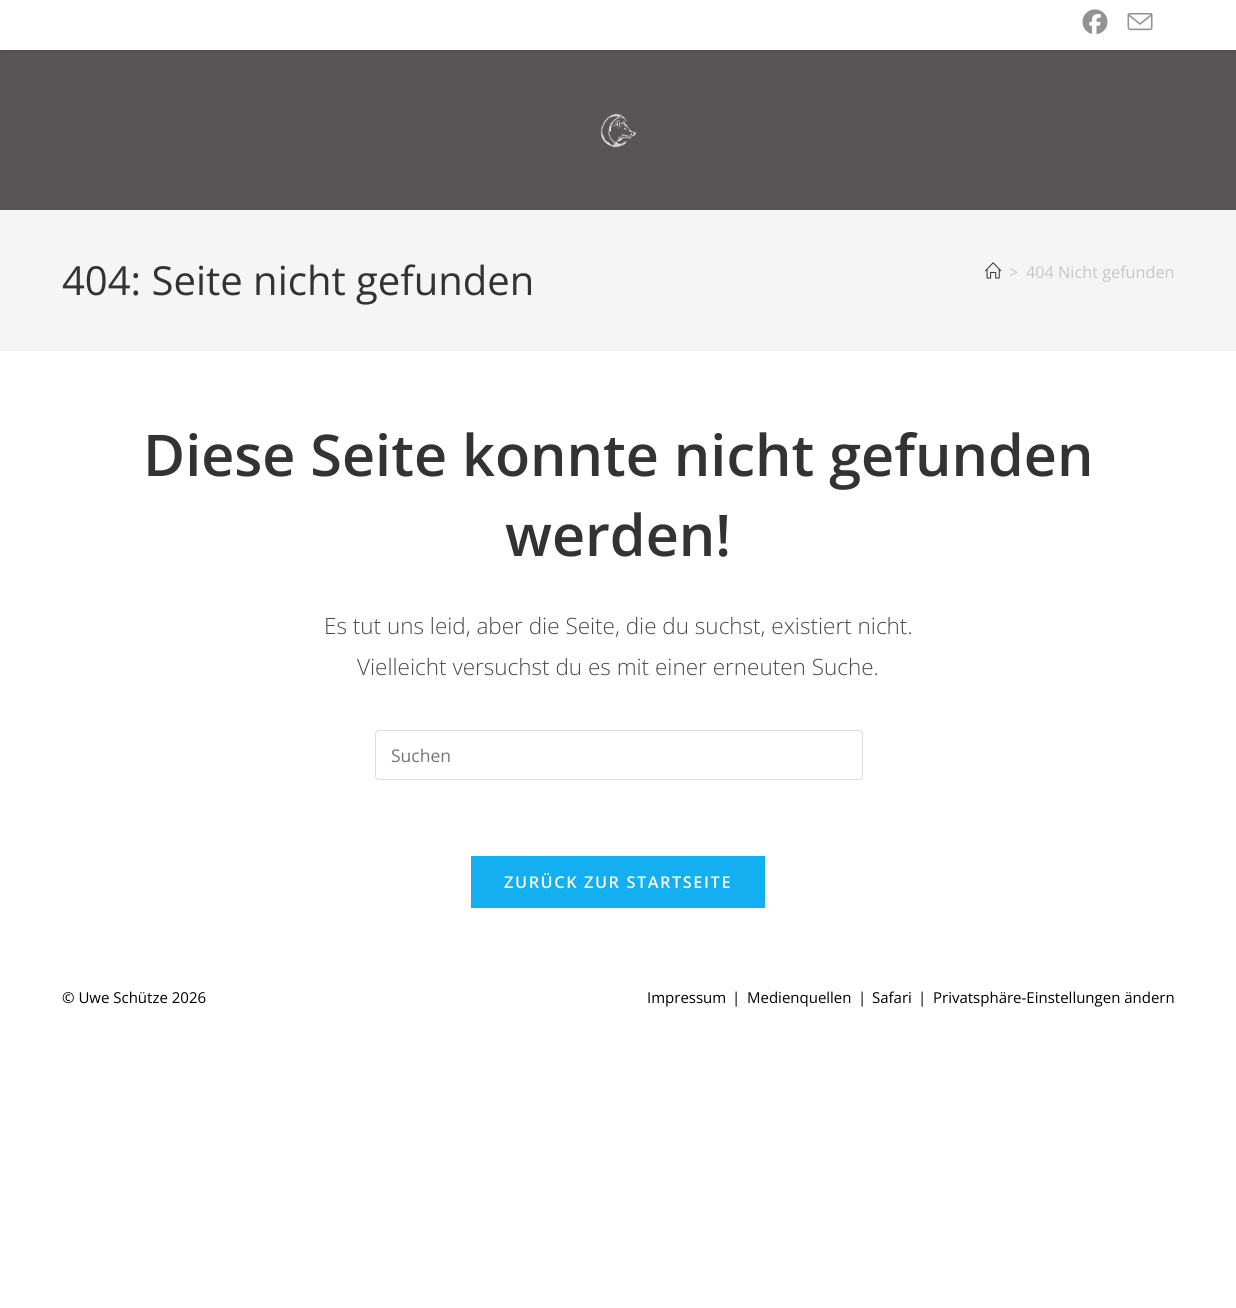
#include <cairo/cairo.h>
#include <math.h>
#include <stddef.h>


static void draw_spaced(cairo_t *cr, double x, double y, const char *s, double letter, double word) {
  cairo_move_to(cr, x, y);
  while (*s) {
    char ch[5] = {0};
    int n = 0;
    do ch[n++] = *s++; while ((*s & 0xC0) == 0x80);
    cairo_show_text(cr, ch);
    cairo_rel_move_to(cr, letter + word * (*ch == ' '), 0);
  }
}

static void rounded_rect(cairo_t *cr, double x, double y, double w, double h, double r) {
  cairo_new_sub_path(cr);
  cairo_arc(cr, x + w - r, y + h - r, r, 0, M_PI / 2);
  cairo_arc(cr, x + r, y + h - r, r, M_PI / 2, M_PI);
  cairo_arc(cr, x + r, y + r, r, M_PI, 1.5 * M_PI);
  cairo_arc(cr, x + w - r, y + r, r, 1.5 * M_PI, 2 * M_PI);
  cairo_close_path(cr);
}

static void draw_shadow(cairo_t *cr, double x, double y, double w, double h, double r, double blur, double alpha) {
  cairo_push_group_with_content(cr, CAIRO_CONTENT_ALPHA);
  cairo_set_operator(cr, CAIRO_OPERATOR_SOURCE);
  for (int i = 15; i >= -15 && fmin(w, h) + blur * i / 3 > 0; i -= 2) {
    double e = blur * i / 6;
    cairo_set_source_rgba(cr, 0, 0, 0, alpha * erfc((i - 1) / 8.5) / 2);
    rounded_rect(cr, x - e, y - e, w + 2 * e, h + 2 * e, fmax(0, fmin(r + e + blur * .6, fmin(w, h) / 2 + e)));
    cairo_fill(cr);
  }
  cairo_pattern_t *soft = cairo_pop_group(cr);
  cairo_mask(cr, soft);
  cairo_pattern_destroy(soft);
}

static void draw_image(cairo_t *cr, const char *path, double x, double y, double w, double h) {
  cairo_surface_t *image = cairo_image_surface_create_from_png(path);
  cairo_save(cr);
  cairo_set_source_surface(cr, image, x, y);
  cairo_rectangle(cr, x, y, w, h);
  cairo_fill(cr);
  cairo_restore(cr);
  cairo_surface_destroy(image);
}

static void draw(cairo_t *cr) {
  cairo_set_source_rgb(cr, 1, 1, 1);
  cairo_paint(cr);
  cairo_set_source_rgb(cr, 87 / 255.0, 85 / 255.0, 86 / 255.0);
  cairo_rectangle(cr, 0, 50, 1236, 160);
  cairo_fill(cr);
  cairo_set_source_rgb(cr, 0, 0, 0);
  draw_shadow(cr, 0, 1, 1236, 50, 0, 3, 0.1);
  cairo_set_source_rgb(cr, 1, 1, 1);
  cairo_rectangle(cr, 0, 0, 1236, 50);
  cairo_fill(cr);
  draw_image(cr, "images/1.png", 1082, 9, 26, 26);
  draw_image(cr, "images/2.png", 1127, 13, 26, 18);
  draw_image(cr, "images/3.png", 600, 113, 37, 35);
  cairo_set_source_rgb(cr, 245 / 255.0, 245 / 255.0, 245 / 255.0);
  cairo_rectangle(cr, 0, 210, 1236, 141);
  cairo_fill(cr);
  draw_image(cr, "images/4.png", 985, 262, 17, 17);
  rounded_rect(cr, 375.5, 730.5, 487, 49, 3.5);
  cairo_set_source_rgb(cr, 221 / 255.0, 221 / 255.0, 221 / 255.0);
  cairo_set_line_width(cr, 1);
  cairo_stroke(cr);
  cairo_set_source_rgb(cr, 19 / 255.0, 175 / 255.0, 240 / 255.0);
  cairo_rectangle(cr, 471, 856, 294, 52);
  cairo_fill(cr);
  cairo_select_font_face(cr, "Open Sans", CAIRO_FONT_SLANT_NORMAL, CAIRO_FONT_WEIGHT_NORMAL);
  cairo_set_font_size(cr, 40);
  cairo_set_source_rgb(cr, 51 / 255.0, 51 / 255.0, 51 / 255.0);
  cairo_move_to(cr, 62, 295);
  cairo_show_text(cr, "404: Seite nicht gefunden");
  cairo_set_font_size(cr, 16.25);
  cairo_set_source_rgb(cr, 198 / 255.0, 198 / 255.0, 198 / 255.0);
  cairo_move_to(cr, 1009, 278);
  cairo_show_text(cr, ">");
  cairo_move_to(cr, 1026, 278);
  cairo_show_text(cr, "404 Nicht gefunden");
  cairo_select_font_face(cr, "Open Sans SemiBold", CAIRO_FONT_SLANT_NORMAL, CAIRO_FONT_WEIGHT_NORMAL);
  cairo_set_font_size(cr, 57.5);
  cairo_set_source_rgb(cr, 51 / 255.0, 51 / 255.0, 51 / 255.0);
  cairo_move_to(cr, 143, 476);
  cairo_show_text(cr, "Diese Seite konnte nicht gefunden");
  cairo_move_to(cr, 505, 556);
  cairo_show_text(cr, "werden!");
  cairo_select_font_face(cr, "Open Sans Light", CAIRO_FONT_SLANT_NORMAL, CAIRO_FONT_WEIGHT_NORMAL);
  cairo_set_font_size(cr, 22.5);
  cairo_set_source_rgb(cr, 74 / 255.0, 74 / 255.0, 74 / 255.0);
  cairo_move_to(cr, 324, 634);
  cairo_show_text(cr, "Es tut uns leid, aber die Seite, die du suchst, existiert nicht.");
  cairo_move_to(cr, 357, 675);
  cairo_show_text(cr, "Vielleicht versuchst du es mit einer erneuten Suche.");
  cairo_select_font_face(cr, "Open Sans", CAIRO_FONT_SLANT_NORMAL, CAIRO_FONT_WEIGHT_NORMAL);
  cairo_set_font_size(cr, 17.5);
  cairo_set_source_rgb(cr, 117 / 255.0, 117 / 255.0, 117 / 255.0);
  cairo_move_to(cr, 391, 762);
  cairo_show_text(cr, "Suchen");
  cairo_select_font_face(cr, "Open Sans SemiBold", CAIRO_FONT_SLANT_NORMAL, CAIRO_FONT_WEIGHT_NORMAL);
  cairo_set_font_size(cr, 16.25);
  cairo_set_source_rgb(cr, 1, 1, 1);
  draw_spaced(cr, 504, 888, "ZURÜCK ZUR STARTSEITE", 1.6, 0);
  cairo_select_font_face(cr, "Open Sans", CAIRO_FONT_SLANT_NORMAL, CAIRO_FONT_WEIGHT_NORMAL);
  cairo_set_font_size(cr, 15);
  cairo_set_source_rgb(cr, 0, 0, 0);
  cairo_move_to(cr, 62, 1003);
  cairo_show_text(cr, "© Uwe Schütze 2026");
  cairo_move_to(cr, 647, 1003);
  cairo_show_text(cr, "Impressum");
  cairo_move_to(cr, 732, 1003);
  cairo_show_text(cr, "|");
  cairo_move_to(cr, 747, 1003);
  cairo_show_text(cr, "Medienquellen");
  cairo_move_to(cr, 858, 1003);
  cairo_show_text(cr, "|");
  cairo_move_to(cr, 872, 1003);
  cairo_show_text(cr, "Safari");
  cairo_move_to(cr, 918, 1003);
  cairo_show_text(cr, "|");
  cairo_move_to(cr, 933, 1003);
  cairo_show_text(cr, "Privatsphäre-Einstellungen ändern");
}

int main(void) {
  cairo_surface_t *surface = cairo_image_surface_create(CAIRO_FORMAT_RGB24, 1236, 1308);
  cairo_t *cr = cairo_create(surface);
  cairo_font_options_t *options = cairo_font_options_create();
  cairo_font_options_set_hint_metrics(options, CAIRO_HINT_METRICS_OFF);
  cairo_font_options_set_hint_style(options, CAIRO_HINT_STYLE_NONE);
  cairo_set_font_options(cr, options);
  cairo_set_miter_limit(cr, 4);
  draw(cr);
  cairo_surface_write_to_png(surface, "out.png");
  cairo_font_options_destroy(options);
  cairo_destroy(cr);
  cairo_surface_destroy(surface);
  return 0;
}
